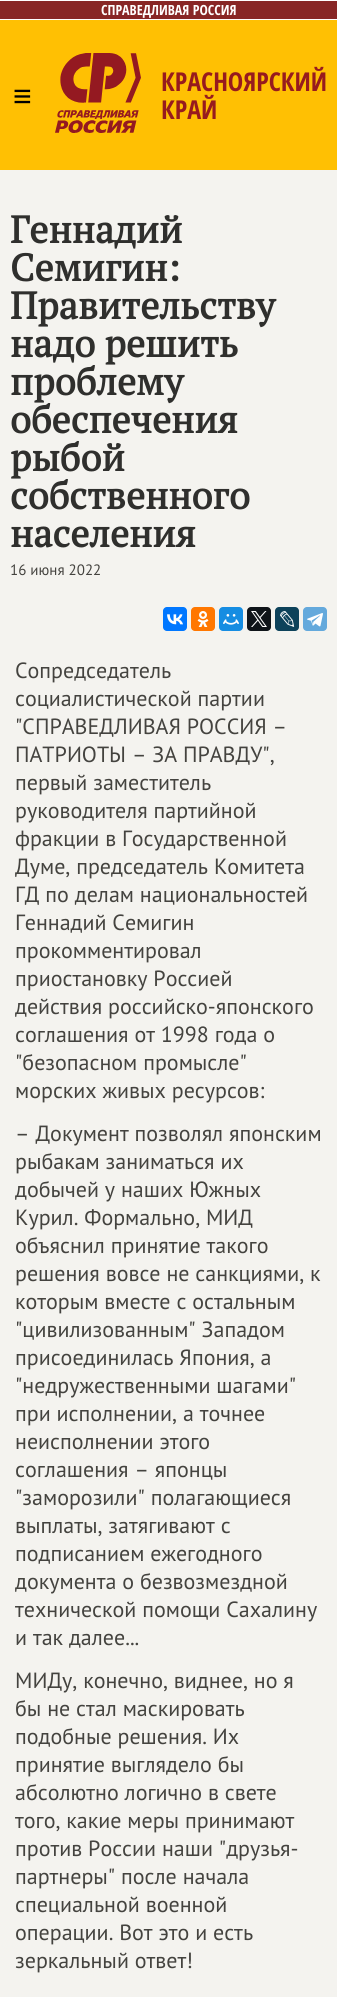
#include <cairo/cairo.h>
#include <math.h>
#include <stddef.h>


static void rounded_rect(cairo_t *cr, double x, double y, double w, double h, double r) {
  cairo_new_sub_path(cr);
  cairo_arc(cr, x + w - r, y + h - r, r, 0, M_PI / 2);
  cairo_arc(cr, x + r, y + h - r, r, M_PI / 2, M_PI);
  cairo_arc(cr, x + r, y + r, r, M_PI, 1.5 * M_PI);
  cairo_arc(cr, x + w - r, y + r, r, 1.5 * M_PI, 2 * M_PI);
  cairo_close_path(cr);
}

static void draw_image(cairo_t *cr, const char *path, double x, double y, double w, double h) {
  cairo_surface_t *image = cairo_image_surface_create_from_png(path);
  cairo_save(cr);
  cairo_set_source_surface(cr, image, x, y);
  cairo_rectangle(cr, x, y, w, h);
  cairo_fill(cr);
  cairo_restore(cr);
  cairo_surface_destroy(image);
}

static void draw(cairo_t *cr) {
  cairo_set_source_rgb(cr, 244 / 255.0, 243 / 255.0, 239 / 255.0);
  cairo_paint(cr);
  cairo_set_source_rgb(cr, 1, 192 / 255.0, 3 / 255.0);
  cairo_rectangle(cr, 0, 20, 337, 150);
  cairo_fill(cr);
  cairo_set_source_rgb(cr, 136 / 255.0, 38 / 255.0, 37 / 255.0);
  cairo_rectangle(cr, 0, 1, 337, 18);
  cairo_fill(cr);
  cairo_set_source_rgb(cr, 1, 1, 1);
  cairo_rectangle(cr, 0, 0, 337, 1);
  cairo_fill(cr);
  cairo_rectangle(cr, 0, 19, 337, 1);
  cairo_fill(cr);
  draw_image(cr, "images/1.png", 55, 53, 86, 80);
  cairo_set_source_rgb(cr, 0, 119 / 255.0, 1);
  rounded_rect(cr, 163, 607, 24, 24, 4);
  cairo_fill(cr);
  draw_image(cr, "images/2.png", 167, 614, 16, 11);
  cairo_set_source_rgb(cr, 1, 119 / 255.0, 0);
  rounded_rect(cr, 191, 607, 24, 24, 4);
  cairo_fill(cr);
  draw_image(cr, "images/3.png", 197, 611, 12, 16);
  cairo_set_source_rgb(cr, 22 / 255.0, 141 / 255.0, 226 / 255.0);
  rounded_rect(cr, 219, 607, 24, 24, 4);
  cairo_fill(cr);
  draw_image(cr, "images/4.png", 223, 614, 16, 11);
  cairo_set_source_rgb(cr, 15 / 255.0, 20 / 255.0, 25 / 255.0);
  rounded_rect(cr, 247, 607, 24, 24, 4);
  cairo_fill(cr);
  draw_image(cr, "images/5.png", 251, 611, 16, 16);
  cairo_set_source_rgb(cr, 13 / 255.0, 66 / 255.0, 90 / 255.0);
  rounded_rect(cr, 275, 607, 24, 24, 4);
  cairo_fill(cr);
  draw_image(cr, "images/6.png", 280, 611, 15, 16);
  cairo_set_source_rgb(cr, 100 / 255.0, 169 / 255.0, 220 / 255.0);
  rounded_rect(cr, 303, 607, 24, 24, 4);
  cairo_fill(cr);
  draw_image(cr, "images/7.png", 307, 613, 16, 14);
  cairo_select_font_face(cr, "Open Sans Condensed", CAIRO_FONT_SLANT_NORMAL, CAIRO_FONT_WEIGHT_BOLD);
  cairo_set_font_size(cr, 14);
  cairo_set_source_rgb(cr, 1, 1, 1);
  cairo_move_to(cr, 101, 15);
  cairo_show_text(cr, "СПРАВЕДЛИВАЯ РОССИЯ");
  cairo_select_font_face(cr, "Liberation Sans", CAIRO_FONT_SLANT_NORMAL, CAIRO_FONT_WEIGHT_NORMAL);
  cairo_set_font_size(cr, 32);
  cairo_set_source_rgb(cr, 0, 0, 0);
  cairo_move_to(cr, 13, 107);
  cairo_show_text(cr, "≡");
  cairo_select_font_face(cr, "Open Sans Condensed", CAIRO_FONT_SLANT_NORMAL, CAIRO_FONT_WEIGHT_BOLD);
  cairo_set_font_size(cr, 26);
  cairo_set_source_rgb(cr, 151 / 255.0, 27 / 255.0, 30 / 255.0);
  cairo_move_to(cr, 161, 91);
  cairo_show_text(cr, "КРАСНОЯРСКИЙ");
  cairo_move_to(cr, 161, 119);
  cairo_show_text(cr, "КРАЙ");
  cairo_select_font_face(cr, "PT Serif", CAIRO_FONT_SLANT_NORMAL, CAIRO_FONT_WEIGHT_BOLD);
  cairo_set_font_size(cr, 38);
  cairo_set_source_rgb(cr, 47 / 255.0, 47 / 255.0, 45 / 255.0);
  cairo_move_to(cr, 10, 243);
  cairo_show_text(cr, "Геннадий");
  cairo_move_to(cr, 10, 281);
  cairo_show_text(cr, "Семигин:");
  cairo_move_to(cr, 10, 319);
  cairo_show_text(cr, "Правительству");
  cairo_move_to(cr, 10, 357);
  cairo_show_text(cr, "надо решить");
  cairo_move_to(cr, 10, 395);
  cairo_show_text(cr, "проблему");
  cairo_move_to(cr, 10, 433);
  cairo_show_text(cr, "обеспечения");
  cairo_move_to(cr, 10, 471);
  cairo_show_text(cr, "рыбой");
  cairo_move_to(cr, 10, 509);
  cairo_show_text(cr, "собственного");
  cairo_move_to(cr, 10, 547);
  cairo_show_text(cr, "населения");
  cairo_select_font_face(cr, "PT Sans", CAIRO_FONT_SLANT_NORMAL, CAIRO_FONT_WEIGHT_NORMAL);
  cairo_set_font_size(cr, 15);
  cairo_set_source_rgb(cr, 68 / 255.0, 67 / 255.0, 63 / 255.0);
  cairo_move_to(cr, 10, 575);
  cairo_show_text(cr, "16 июня 2022");
  cairo_set_font_size(cr, 22);
  cairo_move_to(cr, 15, 678);
  cairo_show_text(cr, "Сопредседатель");
  cairo_move_to(cr, 15, 706);
  cairo_show_text(cr, "социалистической партии");
  cairo_move_to(cr, 15, 734);
  cairo_show_text(cr, "\"СПРАВЕДЛИВАЯ РОССИЯ –");
  cairo_move_to(cr, 15, 762);
  cairo_show_text(cr, "ПАТРИОТЫ – ЗА ПРАВДУ\",");
  cairo_move_to(cr, 15, 790);
  cairo_show_text(cr, "первый заместитель");
  cairo_move_to(cr, 15, 818);
  cairo_show_text(cr, "руководителя партийной");
  cairo_move_to(cr, 15, 846);
  cairo_show_text(cr, "фракции в Государственной");
  cairo_move_to(cr, 15, 874);
  cairo_show_text(cr, "Думе, председатель Комитета");
  cairo_move_to(cr, 15, 902);
  cairo_show_text(cr, "ГД по делам национальностей");
  cairo_move_to(cr, 15, 930);
  cairo_show_text(cr, "Геннадий Семигин");
  cairo_move_to(cr, 15, 958);
  cairo_show_text(cr, "прокомментировал");
  cairo_move_to(cr, 15, 986);
  cairo_show_text(cr, "приостановку Россией");
  cairo_move_to(cr, 15, 1014);
  cairo_show_text(cr, "действия российско-японского");
  cairo_move_to(cr, 15, 1042);
  cairo_show_text(cr, "соглашения от 1998 года о");
  cairo_move_to(cr, 15, 1070);
  cairo_show_text(cr, "\"безопасном промысле\"");
  cairo_move_to(cr, 15, 1098);
  cairo_show_text(cr, "морских живых ресурсов:");
  cairo_move_to(cr, 15, 1141);
  cairo_show_text(cr, "– Документ позволял японским");
  cairo_move_to(cr, 15, 1169);
  cairo_show_text(cr, "рыбакам заниматься их");
  cairo_move_to(cr, 15, 1197);
  cairo_show_text(cr, "добычей у наших Южных");
  cairo_move_to(cr, 15, 1225);
  cairo_show_text(cr, "Курил. Формально, МИД");
  cairo_move_to(cr, 15, 1253);
  cairo_show_text(cr, "объяснил принятие такого");
  cairo_move_to(cr, 15, 1281);
  cairo_show_text(cr, "решения вовсе не санкциями, к");
  cairo_move_to(cr, 15, 1309);
  cairo_show_text(cr, "которым вместе с остальным");
  cairo_move_to(cr, 15, 1337);
  cairo_show_text(cr, "\"цивилизованным\" Западом");
  cairo_move_to(cr, 15, 1365);
  cairo_show_text(cr, "присоединилась Япония, а");
  cairo_move_to(cr, 15, 1393);
  cairo_show_text(cr, "\"недружественными шагами\"");
  cairo_move_to(cr, 15, 1421);
  cairo_show_text(cr, "при исполнении, а точнее");
  cairo_move_to(cr, 15, 1449);
  cairo_show_text(cr, "неисполнении этого");
  cairo_move_to(cr, 15, 1477);
  cairo_show_text(cr, "соглашения – японцы");
  cairo_move_to(cr, 15, 1505);
  cairo_show_text(cr, "\"заморозили\" полагающиеся");
  cairo_move_to(cr, 15, 1533);
  cairo_show_text(cr, "выплаты, затягивают с");
  cairo_move_to(cr, 15, 1561);
  cairo_show_text(cr, "подписанием ежегодного");
  cairo_move_to(cr, 15, 1589);
  cairo_show_text(cr, "документа о безвозмездной");
  cairo_move_to(cr, 15, 1617);
  cairo_show_text(cr, "технической помощи Сахалину");
  cairo_move_to(cr, 15, 1645);
  cairo_show_text(cr, "и так далее...");
  cairo_move_to(cr, 15, 1688);
  cairo_show_text(cr, "МИДу, конечно, виднее, но я");
  cairo_move_to(cr, 15, 1716);
  cairo_show_text(cr, "бы не стал маскировать");
  cairo_move_to(cr, 15, 1744);
  cairo_show_text(cr, "подобные решения. Их");
  cairo_move_to(cr, 15, 1772);
  cairo_show_text(cr, "принятие выглядело бы");
  cairo_move_to(cr, 15, 1800);
  cairo_show_text(cr, "абсолютно логично в свете");
  cairo_move_to(cr, 15, 1828);
  cairo_show_text(cr, "того, какие меры принимают");
  cairo_move_to(cr, 15, 1856);
  cairo_show_text(cr, "против России наши \"друзья-");
  cairo_move_to(cr, 15, 1884);
  cairo_show_text(cr, "партнеры\" после начала");
  cairo_move_to(cr, 15, 1912);
  cairo_show_text(cr, "специальной военной");
  cairo_move_to(cr, 15, 1940);
  cairo_show_text(cr, "операции. Вот это и есть");
  cairo_move_to(cr, 15, 1968);
  cairo_show_text(cr, "зеркальный ответ!");
}

int main(void) {
  cairo_surface_t *surface = cairo_image_surface_create(CAIRO_FORMAT_RGB24, 337, 1997);
  cairo_t *cr = cairo_create(surface);
  cairo_font_options_t *options = cairo_font_options_create();
  cairo_font_options_set_hint_metrics(options, CAIRO_HINT_METRICS_OFF);
  cairo_font_options_set_hint_style(options, CAIRO_HINT_STYLE_NONE);
  cairo_set_font_options(cr, options);
  cairo_set_miter_limit(cr, 4);
  draw(cr);
  cairo_surface_write_to_png(surface, "out.png");
  cairo_font_options_destroy(options);
  cairo_destroy(cr);
  cairo_surface_destroy(surface);
  return 0;
}
